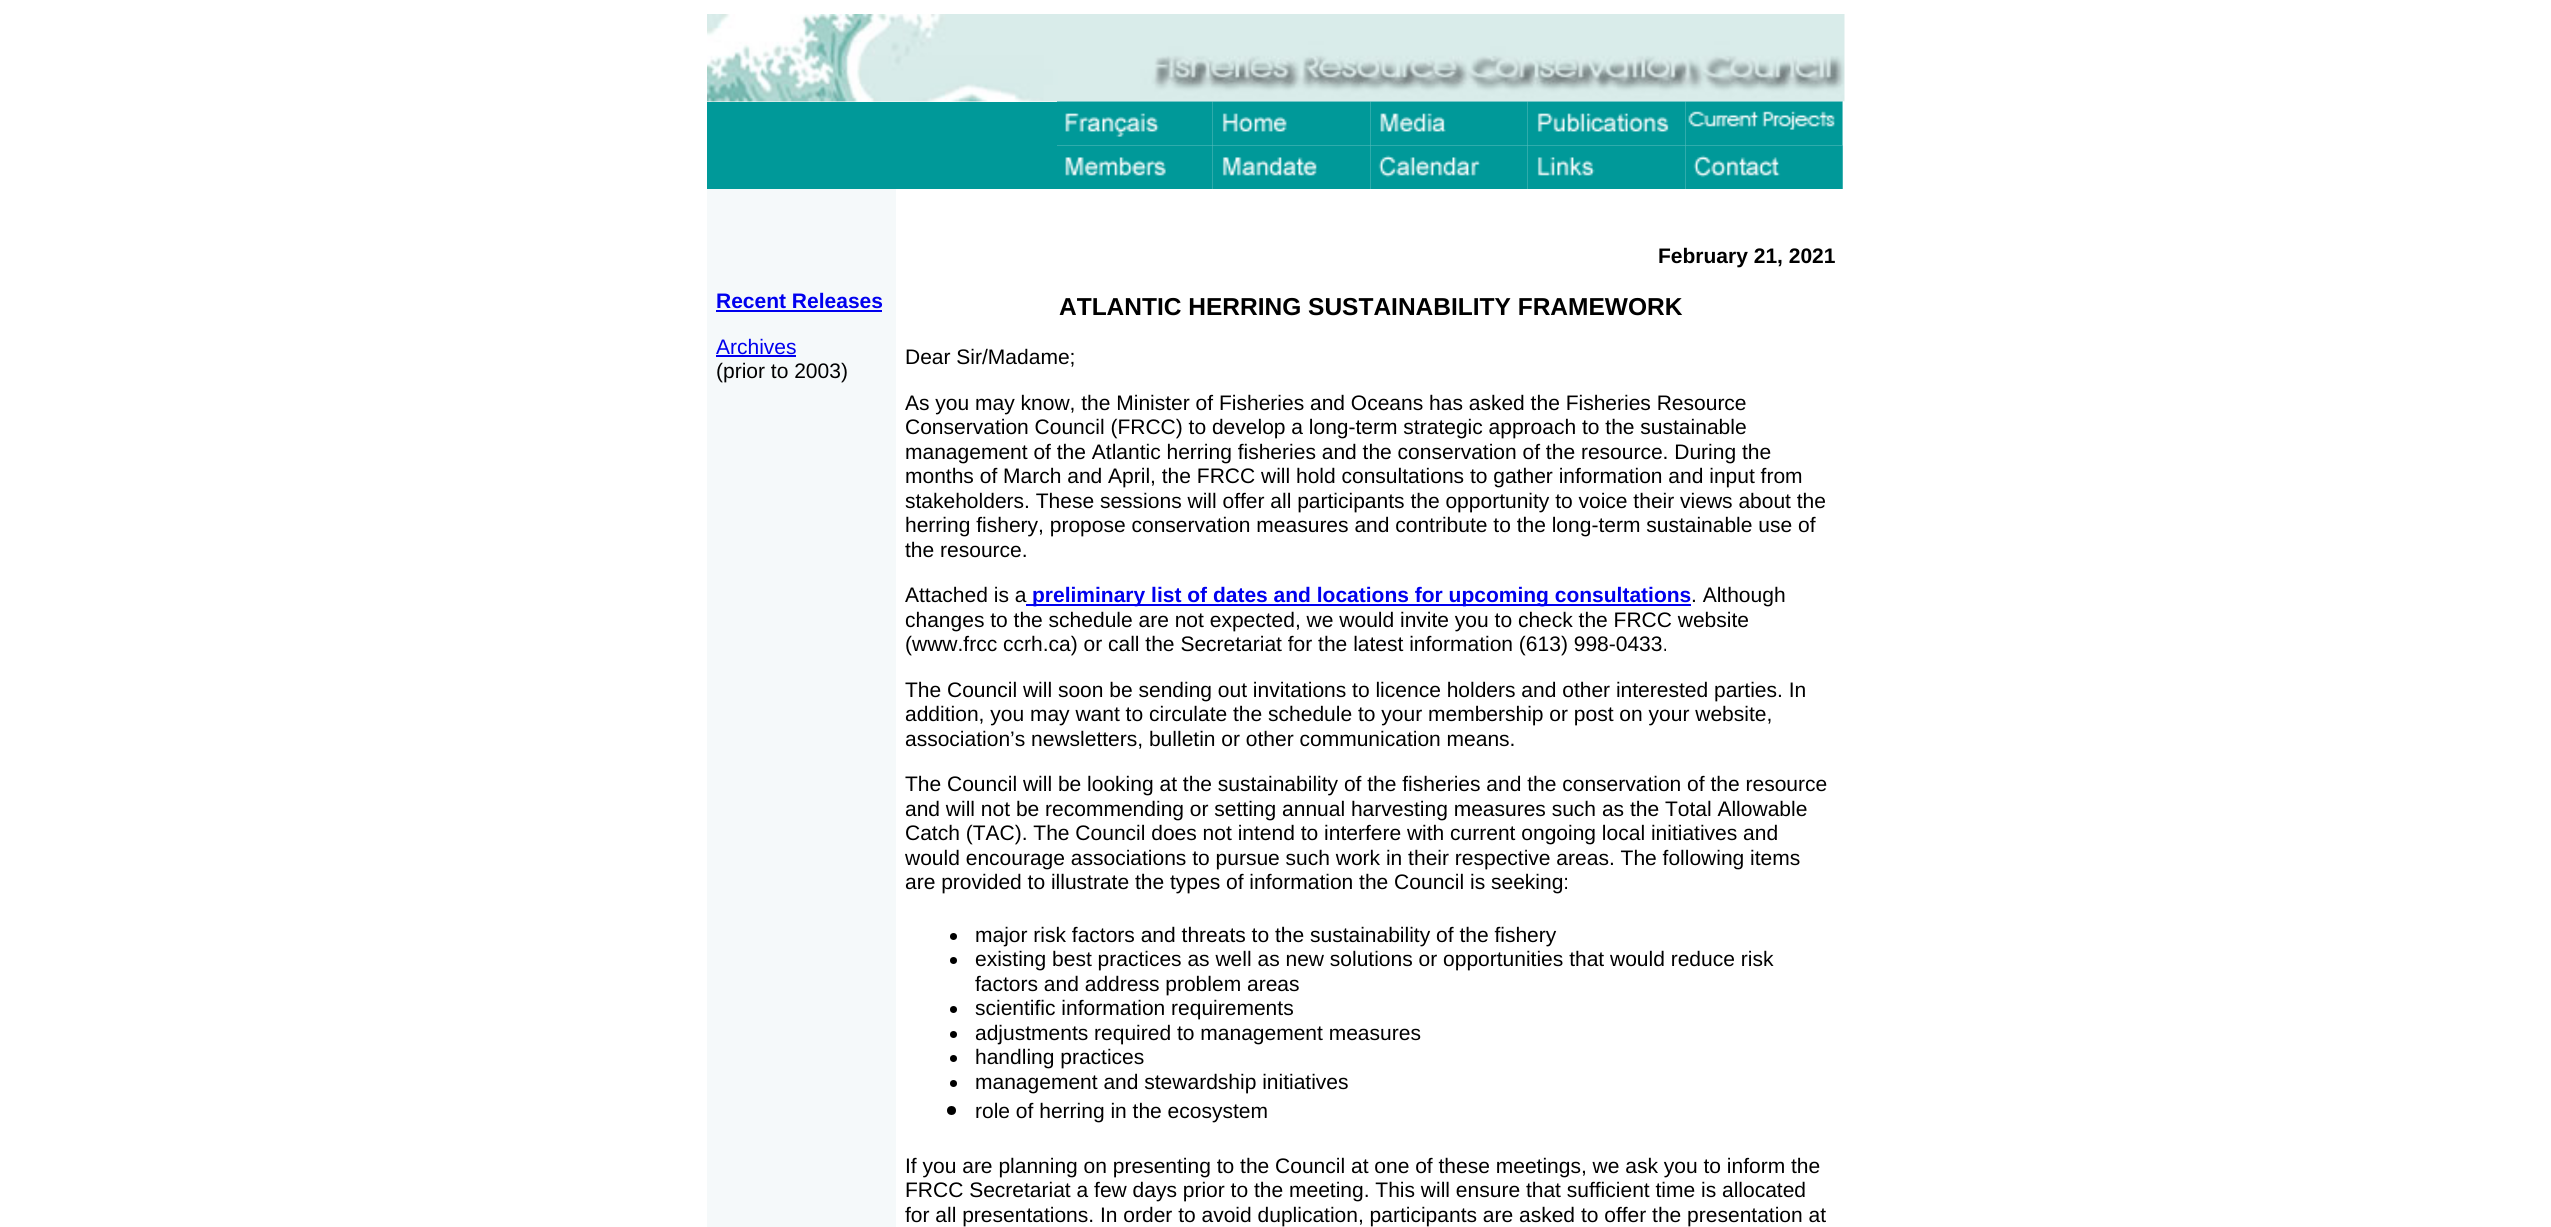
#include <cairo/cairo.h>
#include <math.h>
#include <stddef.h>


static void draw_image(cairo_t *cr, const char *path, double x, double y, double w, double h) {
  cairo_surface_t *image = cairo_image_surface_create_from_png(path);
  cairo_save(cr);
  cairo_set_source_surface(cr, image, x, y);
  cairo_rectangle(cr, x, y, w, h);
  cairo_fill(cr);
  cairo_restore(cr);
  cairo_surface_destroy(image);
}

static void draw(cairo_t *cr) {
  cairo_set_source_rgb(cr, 1, 1, 1);
  cairo_paint(cr);
  draw_image(cr, "images/1.png", 707, 14, 1138, 88);
  cairo_set_source_rgb(cr, 0, 153 / 255.0, 153 / 255.0);
  cairo_rectangle(cr, 707, 102, 350, 87);
  cairo_fill(cr);
  draw_image(cr, "images/2.png", 1057, 101, 156, 45);
  draw_image(cr, "images/3.png", 1212, 101, 159, 45);
  draw_image(cr, "images/4.png", 1370, 101, 158, 45);
  draw_image(cr, "images/5.png", 1527, 101, 159, 45);
  draw_image(cr, "images/6.png", 1685, 101, 158, 45);
  draw_image(cr, "images/7.png", 1842, 101, 2, 45);
  draw_image(cr, "images/8.png", 1057, 145, 156, 44);
  draw_image(cr, "images/9.png", 1212, 145, 159, 44);
  draw_image(cr, "images/10.png", 1370, 145, 158, 44);
  draw_image(cr, "images/11.png", 1527, 145, 159, 44);
  draw_image(cr, "images/12.png", 1685, 145, 158, 44);
  cairo_set_source_rgb(cr, 245 / 255.0, 249 / 255.0, 250 / 255.0);
  cairo_rectangle(cr, 707, 189, 189, 1038);
  cairo_fill(cr);
  cairo_set_source_rgb(cr, 0, 0, 238 / 255.0);
  cairo_rectangle(cr, 716, 310, 166, 2);
  cairo_fill(cr);
  cairo_rectangle(cr, 716, 355, 80, 2);
  cairo_fill(cr);
  cairo_rectangle(cr, 1026, 604, 665, 2);
  cairo_fill(cr);
  cairo_set_source_rgb(cr, 0, 0, 0);
  cairo_arc(cr, 953.5, 936.5, 3.5, 0, 2 * M_PI);
  cairo_fill(cr);
  cairo_arc(cr, 953.5, 960.5, 3.5, 0, 2 * M_PI);
  cairo_fill(cr);
  cairo_arc(cr, 953.5, 1009.5, 3.5, 0, 2 * M_PI);
  cairo_fill(cr);
  cairo_arc(cr, 953.5, 1034.5, 3.5, 0, 2 * M_PI);
  cairo_fill(cr);
  cairo_arc(cr, 953.5, 1058.5, 3.5, 0, 2 * M_PI);
  cairo_fill(cr);
  cairo_arc(cr, 953.5, 1083.5, 3.5, 0, 2 * M_PI);
  cairo_fill(cr);
  cairo_arc(cr, 951.5, 1110.5, 4.5, 0, 2 * M_PI);
  cairo_fill(cr);
  cairo_select_font_face(cr, "Liberation Sans", CAIRO_FONT_SLANT_NORMAL, CAIRO_FONT_WEIGHT_BOLD);
  cairo_set_font_size(cr, 21);
  cairo_set_source_rgb(cr, 0, 0, 238 / 255.0);
  cairo_move_to(cr, 716, 308);
  cairo_show_text(cr, "Recent Releases");
  cairo_select_font_face(cr, "Liberation Sans", CAIRO_FONT_SLANT_NORMAL, CAIRO_FONT_WEIGHT_NORMAL);
  cairo_move_to(cr, 716, 354);
  cairo_show_text(cr, "Archives");
  cairo_set_source_rgb(cr, 0, 0, 0);
  cairo_move_to(cr, 716, 378);
  cairo_show_text(cr, "(prior to 2003)");
  cairo_select_font_face(cr, "Liberation Sans", CAIRO_FONT_SLANT_NORMAL, CAIRO_FONT_WEIGHT_BOLD);
  cairo_move_to(cr, 1658, 263);
  cairo_show_text(cr, "February 21, 2021");
  cairo_set_font_size(cr, 24.5);
  cairo_move_to(cr, 1059, 315);
  cairo_show_text(cr, "ATLANTIC HERRING SUSTAINABILITY FRAMEWORK");
  cairo_select_font_face(cr, "Liberation Sans", CAIRO_FONT_SLANT_NORMAL, CAIRO_FONT_WEIGHT_NORMAL);
  cairo_set_font_size(cr, 21);
  cairo_move_to(cr, 905, 364);
  cairo_show_text(cr, "Dear Sir/Madame;");
  cairo_move_to(cr, 905, 410);
  cairo_show_text(cr, "As you may know, the Minister of Fisheries and Oceans has asked the Fisheries Resource");
  cairo_move_to(cr, 905, 434);
  cairo_show_text(cr, "Conservation Council (FRCC) to develop a long-term strategic approach to the sustainable");
  cairo_move_to(cr, 905, 459);
  cairo_show_text(cr, "management of the Atlantic herring fisheries and the conservation of the resource. During the");
  cairo_move_to(cr, 905, 483);
  cairo_show_text(cr, "months of March and April, the FRCC will hold consultations to gather information and input from");
  cairo_move_to(cr, 905, 508);
  cairo_show_text(cr, "stakeholders. These sessions will offer all participants the opportunity to voice their views about the");
  cairo_move_to(cr, 905, 532);
  cairo_show_text(cr, "herring fishery, propose conservation measures and contribute to the long-term sustainable use of");
  cairo_move_to(cr, 905, 557);
  cairo_show_text(cr, "the resource.");
  cairo_move_to(cr, 905, 602);
  cairo_show_text(cr, "Attached is a");
  cairo_select_font_face(cr, "Liberation Sans", CAIRO_FONT_SLANT_NORMAL, CAIRO_FONT_WEIGHT_BOLD);
  cairo_set_source_rgb(cr, 0, 0, 238 / 255.0);
  cairo_move_to(cr, 1032, 602);
  cairo_show_text(cr, "preliminary list of dates and locations for upcoming consultations");
  cairo_select_font_face(cr, "Liberation Sans", CAIRO_FONT_SLANT_NORMAL, CAIRO_FONT_WEIGHT_NORMAL);
  cairo_set_source_rgb(cr, 0, 0, 0);
  cairo_move_to(cr, 1691, 602);
  cairo_show_text(cr, ". Although");
  cairo_move_to(cr, 905, 627);
  cairo_show_text(cr, "changes to the schedule are not expected, we would invite you to check the FRCC website");
  cairo_move_to(cr, 905, 651);
  cairo_show_text(cr, "(www.frcc ccrh.ca) or call the Secretariat for the latest information (613) 998-0433.");
  cairo_move_to(cr, 905, 697);
  cairo_show_text(cr, "The Council will soon be sending out invitations to licence holders and other interested parties. In");
  cairo_move_to(cr, 905, 721);
  cairo_show_text(cr, "addition, you may want to circulate the schedule to your membership or post on your website,");
  cairo_move_to(cr, 905, 746);
  cairo_show_text(cr, "association’s newsletters, bulletin or other communication means.");
  cairo_move_to(cr, 905, 791);
  cairo_show_text(cr, "The Council will be looking at the sustainability of the fisheries and the conservation of the resource");
  cairo_move_to(cr, 905, 816);
  cairo_show_text(cr, "and will not be recommending or setting annual harvesting measures such as the Total Allowable");
  cairo_move_to(cr, 905, 840);
  cairo_show_text(cr, "Catch (TAC). The Council does not intend to interfere with current ongoing local initiatives and");
  cairo_move_to(cr, 905, 865);
  cairo_show_text(cr, "would encourage associations to pursue such work in their respective areas. The following items");
  cairo_move_to(cr, 905, 889);
  cairo_show_text(cr, "are provided to illustrate the types of information the Council is seeking:");
  cairo_move_to(cr, 975, 942);
  cairo_show_text(cr, "major risk factors and threats to the sustainability of the fishery");
  cairo_move_to(cr, 975, 966);
  cairo_show_text(cr, "existing best practices as well as new solutions or opportunities that would reduce risk");
  cairo_move_to(cr, 975, 991);
  cairo_show_text(cr, "factors and address problem areas");
  cairo_move_to(cr, 975, 1015);
  cairo_show_text(cr, "scientific information requirements");
  cairo_move_to(cr, 975, 1040);
  cairo_show_text(cr, "adjustments required to management measures");
  cairo_move_to(cr, 975, 1064);
  cairo_show_text(cr, "handling practices");
  cairo_move_to(cr, 975, 1089);
  cairo_show_text(cr, "management and stewardship initiatives");
  cairo_move_to(cr, 975, 1118);
  cairo_show_text(cr, "role of herring in the ecosystem");
  cairo_move_to(cr, 905, 1173);
  cairo_show_text(cr, "If you are planning on presenting to the Council at one of these meetings, we ask you to inform the");
  cairo_move_to(cr, 905, 1197);
  cairo_show_text(cr, "FRCC Secretariat a few days prior to the meeting. This will ensure that sufficient time is allocated");
  cairo_move_to(cr, 905, 1222);
  cairo_show_text(cr, "for all presentations. In order to avoid duplication, participants are asked to offer the presentation at");
}

int main(void) {
  cairo_surface_t *surface = cairo_image_surface_create(CAIRO_FORMAT_RGB24, 2551, 1227);
  cairo_t *cr = cairo_create(surface);
  cairo_font_options_t *options = cairo_font_options_create();
  cairo_font_options_set_hint_metrics(options, CAIRO_HINT_METRICS_OFF);
  cairo_font_options_set_hint_style(options, CAIRO_HINT_STYLE_NONE);
  cairo_set_font_options(cr, options);
  cairo_set_miter_limit(cr, 4);
  draw(cr);
  cairo_surface_write_to_png(surface, "out.png");
  cairo_font_options_destroy(options);
  cairo_destroy(cr);
  cairo_surface_destroy(surface);
  return 0;
}
